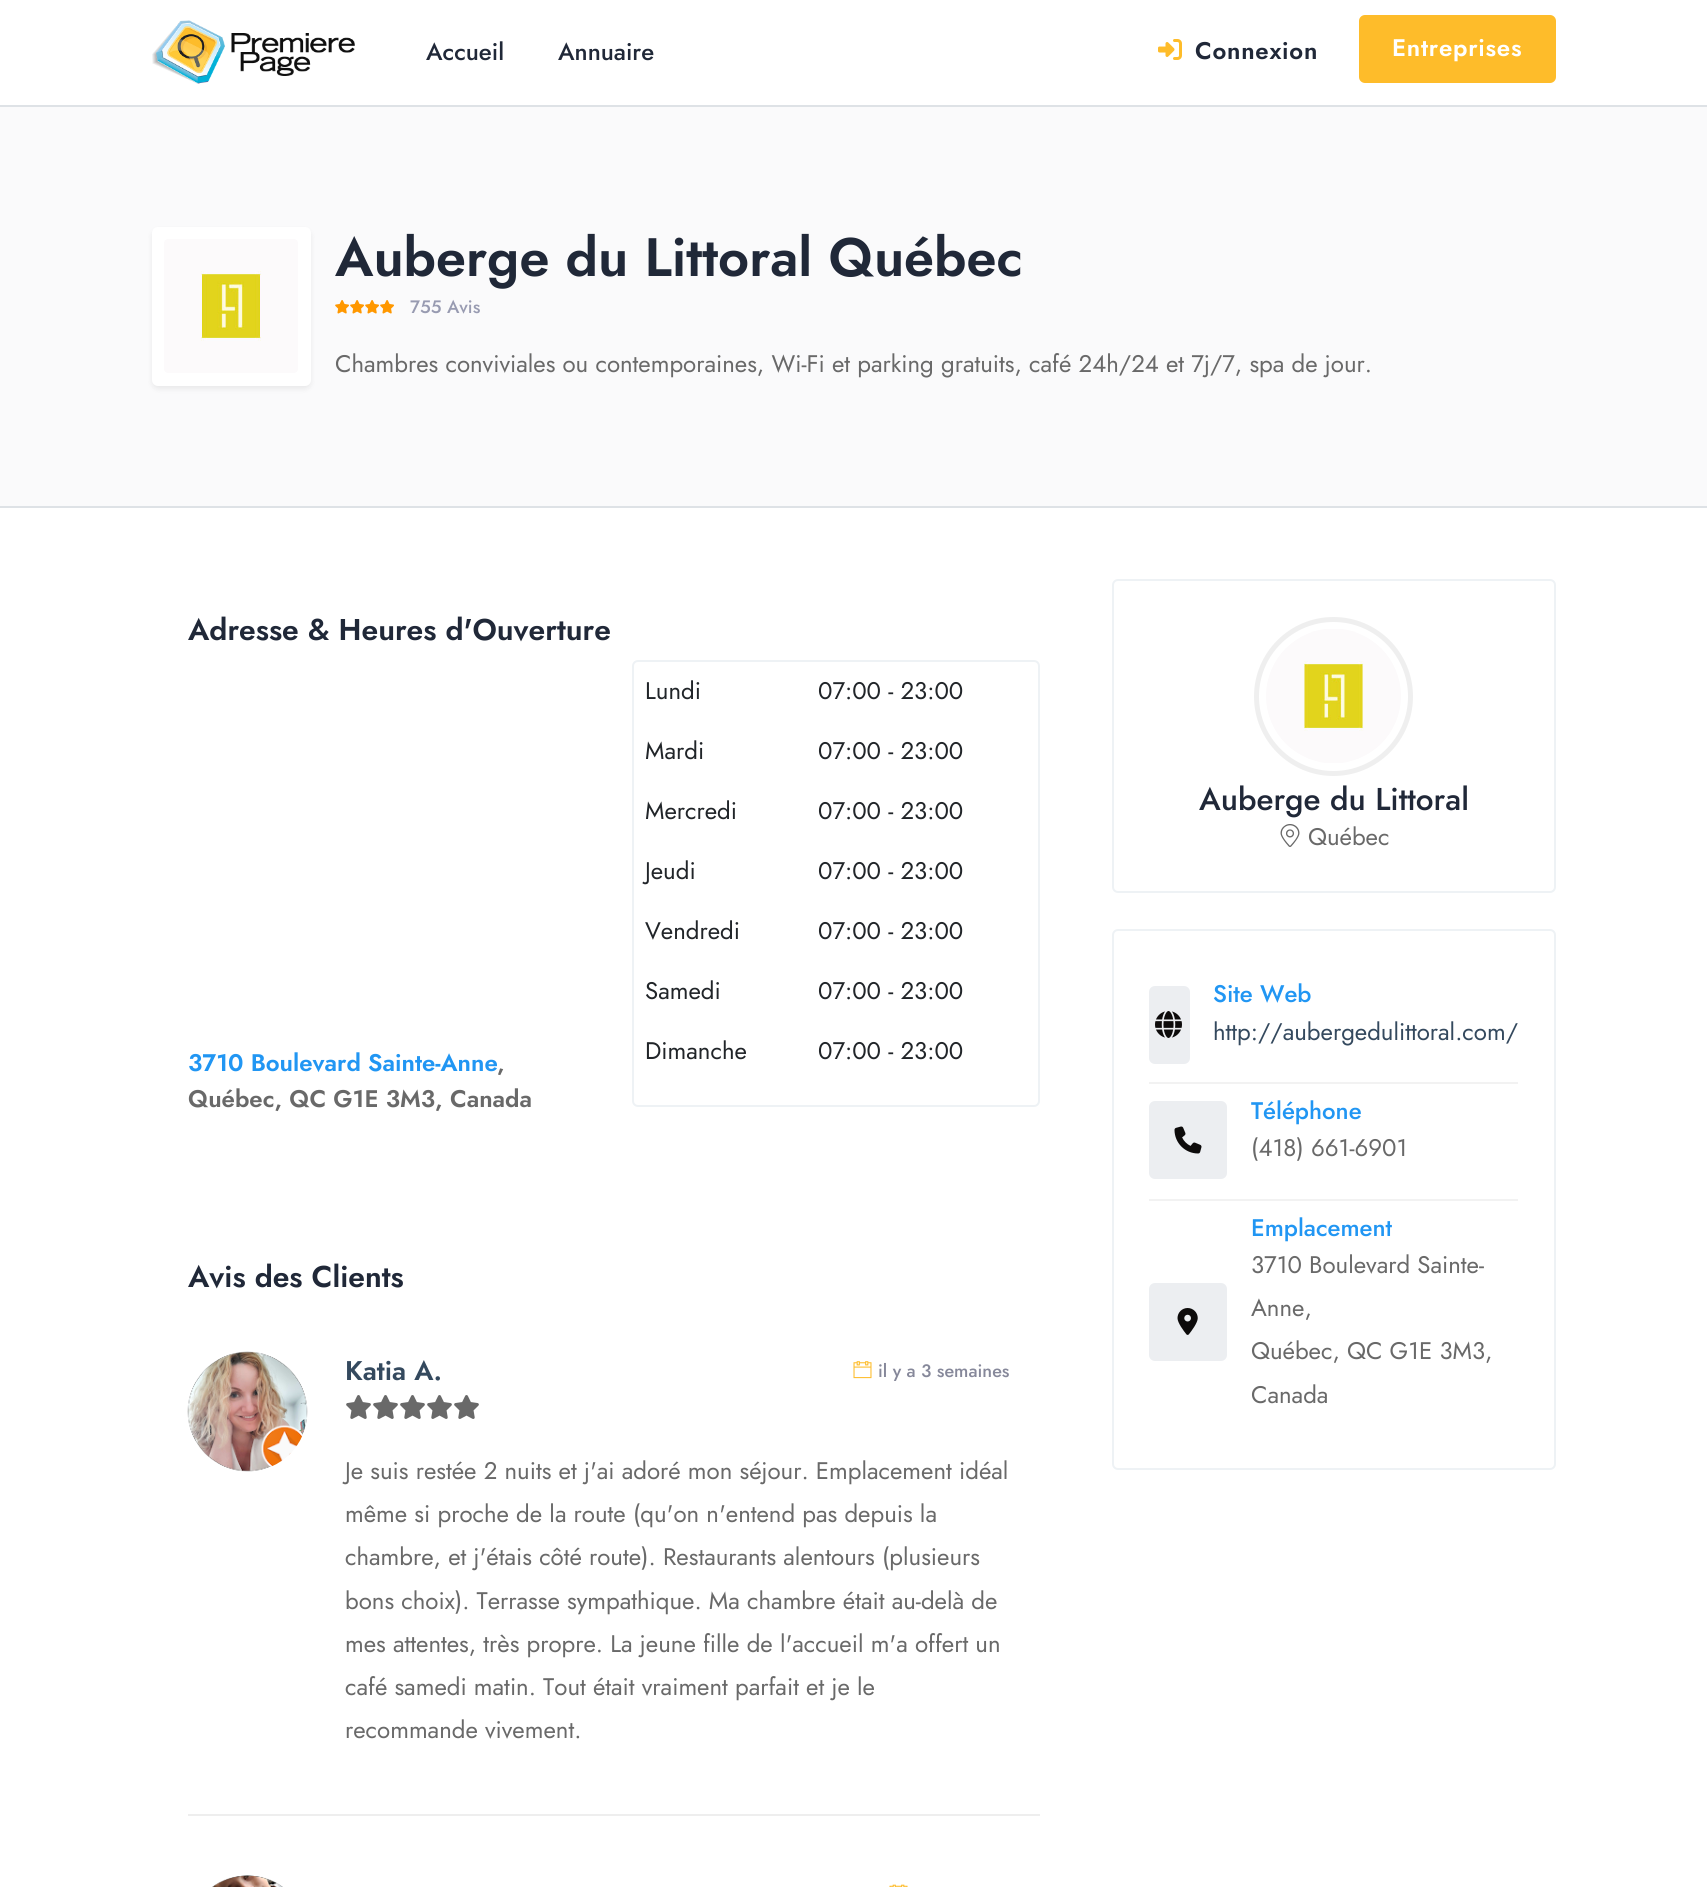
#include <cairo/cairo.h>
#include <math.h>
#include <stddef.h>


static void draw_spaced(cairo_t *cr, double x, double y, const char *s, double letter, double word) {
  cairo_move_to(cr, x, y);
  while (*s) {
    char ch[5] = {0};
    int n = 0;
    do ch[n++] = *s++; while ((*s & 0xC0) == 0x80);
    cairo_show_text(cr, ch);
    cairo_rel_move_to(cr, letter + word * (*ch == ' '), 0);
  }
}

static void rounded_rect(cairo_t *cr, double x, double y, double w, double h, double r) {
  cairo_new_sub_path(cr);
  cairo_arc(cr, x + w - r, y + h - r, r, 0, M_PI / 2);
  cairo_arc(cr, x + r, y + h - r, r, M_PI / 2, M_PI);
  cairo_arc(cr, x + r, y + r, r, M_PI, 1.5 * M_PI);
  cairo_arc(cr, x + w - r, y + r, r, 1.5 * M_PI, 2 * M_PI);
  cairo_close_path(cr);
}

static void draw_shadow(cairo_t *cr, double x, double y, double w, double h, double r, double blur, double alpha) {
  cairo_push_group_with_content(cr, CAIRO_CONTENT_ALPHA);
  cairo_set_operator(cr, CAIRO_OPERATOR_SOURCE);
  for (int i = 15; i >= -15 && fmin(w, h) + blur * i / 3 > 0; i -= 2) {
    double e = blur * i / 6;
    cairo_set_source_rgba(cr, 0, 0, 0, alpha * erfc((i - 1) / 8.5) / 2);
    rounded_rect(cr, x - e, y - e, w + 2 * e, h + 2 * e, fmax(0, fmin(r + e + blur * .6, fmin(w, h) / 2 + e)));
    cairo_fill(cr);
  }
  cairo_pattern_t *soft = cairo_pop_group(cr);
  cairo_mask(cr, soft);
  cairo_pattern_destroy(soft);
}

static void draw_image(cairo_t *cr, const char *path, double x, double y, double w, double h) {
  cairo_surface_t *image = cairo_image_surface_create_from_png(path);
  cairo_save(cr);
  cairo_set_source_surface(cr, image, x, y);
  cairo_rectangle(cr, x, y, w, h);
  cairo_fill(cr);
  cairo_restore(cr);
  cairo_surface_destroy(image);
}

static void draw(cairo_t *cr) {
  cairo_set_source_rgb(cr, 1, 1, 1);
  cairo_paint(cr);
  draw_image(cr, "images/1.png", 152, 20, 203, 64);
  draw_image(cr, "images/2.png", 1158, 39, 24, 21);
  cairo_set_source_rgb(cr, 254 / 255.0, 188 / 255.0, 42 / 255.0);
  rounded_rect(cr, 1359, 15, 197, 68, 6);
  cairo_fill(cr);
  cairo_set_source_rgb(cr, 250 / 255.0, 250 / 255.0, 251 / 255.0);
  cairo_rectangle(cr, 0, 107, 1707, 399);
  cairo_fill(cr);
  cairo_set_source_rgb(cr, 222 / 255.0, 226 / 255.0, 230 / 255.0);
  cairo_rectangle(cr, 0, 105, 1707, 2);
  cairo_fill(cr);
  cairo_rectangle(cr, 0, 506, 1707, 2);
  cairo_fill(cr);
  cairo_set_source_rgb(cr, 0, 0, 0);
  draw_shadow(cr, 152, 230, 159, 159, 6, 3, 0.07);
  cairo_set_source_rgb(cr, 1, 1, 1);
  rounded_rect(cr, 152, 227, 159, 159, 6);
  cairo_fill(cr);
  draw_image(cr, "images/3.png", 164, 239, 134, 134);
  draw_image(cr, "images/4.png", 335, 300, 14, 14);
  draw_image(cr, "images/4.png", 350, 300, 14, 14);
  draw_image(cr, "images/4.png", 365, 300, 14, 14);
  draw_image(cr, "images/4.png", 380, 300, 14, 14);
  rounded_rect(cr, 633, 661, 406, 445, 5);
  cairo_set_source_rgb(cr, 238 / 255.0, 242 / 255.0, 245 / 255.0);
  cairo_stroke(cr);
  cairo_set_source_rgb(cr, 238 / 255.0, 238 / 255.0, 238 / 255.0);
  cairo_rectangle(cr, 188, 1814, 852, 2);
  cairo_fill(cr);
  draw_image(cr, "images/5.png", 187, 1351, 121, 121);
  draw_image(cr, "images/6.png", 853, 1361, 19, 18);
  draw_image(cr, "images/7.png", 346, 1395, 25, 24);
  draw_image(cr, "images/7.png", 373, 1395, 25, 24);
  draw_image(cr, "images/7.png", 400, 1395, 25, 24);
  draw_image(cr, "images/7.png", 427, 1395, 25, 24);
  draw_image(cr, "images/7.png", 454, 1395, 25, 24);
  draw_image(cr, "images/8.png", 212, 1875, 71, 12);
  draw_image(cr, "images/9.png", 889, 1884, 19, 3);
  rounded_rect(cr, 1113, 580, 442, 312, 5);
  cairo_set_source_rgb(cr, 238 / 255.0, 242 / 255.0, 245 / 255.0);
  cairo_stroke(cr);
  cairo_arc(cr, 1333.5, 696.5, 77, 0, 2 * M_PI);
  cairo_set_source_rgb(cr, 239 / 255.0, 239 / 255.0, 239 / 255.0);
  cairo_set_line_width(cr, 5);
  cairo_stroke(cr);
  draw_image(cr, "images/10.png", 1266, 629, 135, 134);
  draw_image(cr, "images/11.png", 1280, 824, 20, 23);
  rounded_rect(cr, 1113, 930, 442, 539, 5);
  cairo_set_source_rgb(cr, 238 / 255.0, 242 / 255.0, 245 / 255.0);
  cairo_set_line_width(cr, 2);
  cairo_stroke(cr);
  cairo_set_source_rgb(cr, 242 / 255.0, 242 / 255.0, 242 / 255.0);
  cairo_rectangle(cr, 1149, 1082, 369, 2);
  cairo_fill(cr);
  cairo_set_source_rgb(cr, 236 / 255.0, 238 / 255.0, 241 / 255.0);
  rounded_rect(cr, 1149, 986, 41, 78, 6);
  cairo_fill(cr);
  draw_image(cr, "images/12.png", 1155, 1011, 27, 27);
  cairo_set_source_rgb(cr, 242 / 255.0, 242 / 255.0, 242 / 255.0);
  cairo_rectangle(cr, 1149, 1199, 369, 2);
  cairo_fill(cr);
  cairo_set_source_rgb(cr, 236 / 255.0, 238 / 255.0, 241 / 255.0);
  rounded_rect(cr, 1149, 1101, 78, 78, 6);
  cairo_fill(cr);
  draw_image(cr, "images/13.png", 1174, 1126, 28, 28);
  rounded_rect(cr, 1149, 1283, 78, 78, 6);
  cairo_fill(cr);
  draw_image(cr, "images/14.png", 1177, 1308, 21, 27);
  cairo_select_font_face(cr, "Jost Medium", CAIRO_FONT_SLANT_NORMAL, CAIRO_FONT_WEIGHT_NORMAL);
  cairo_set_font_size(cr, 24);
  cairo_set_source_rgb(cr, 32 / 255.0, 40 / 255.0, 56 / 255.0);
  cairo_move_to(cr, 426, 60);
  cairo_show_text(cr, "Accueil");
  cairo_move_to(cr, 558, 60);
  cairo_show_text(cr, "Annuaire");
  cairo_select_font_face(cr, "Jost SemiBold", CAIRO_FONT_SLANT_NORMAL, CAIRO_FONT_WEIGHT_NORMAL);
  draw_spaced(cr, 1195, 59, "Connexion", 0.75, 0);
  cairo_set_source_rgb(cr, 1, 1, 1);
  draw_spaced(cr, 1392, 56, "Entreprises", 0.75, 0);
  cairo_set_font_size(cr, 54);
  cairo_set_source_rgb(cr, 32 / 255.0, 40 / 255.0, 56 / 255.0);
  cairo_move_to(cr, 335, 276);
  cairo_show_text(cr, "Auberge du Littoral Québec");
  cairo_select_font_face(cr, "Jost Medium", CAIRO_FONT_SLANT_NORMAL, CAIRO_FONT_WEIGHT_NORMAL);
  cairo_set_font_size(cr, 18);
  cairo_set_source_rgb(cr, 152 / 255.0, 155 / 255.0, 177 / 255.0);
  cairo_move_to(cr, 410, 313);
  cairo_show_text(cr, "755 Avis");
  cairo_select_font_face(cr, "Jost", CAIRO_FONT_SLANT_NORMAL, CAIRO_FONT_WEIGHT_NORMAL);
  cairo_set_font_size(cr, 24);
  cairo_set_source_rgb(cr, 105 / 255.0, 105 / 255.0, 105 / 255.0);
  cairo_move_to(cr, 335, 372);
  cairo_show_text(cr, "Chambres conviviales ou contemporaines, Wi-Fi et parking gratuits, café 24h/24 et 7j/7, spa de jour.");
  cairo_select_font_face(cr, "Jost SemiBold", CAIRO_FONT_SLANT_NORMAL, CAIRO_FONT_WEIGHT_NORMAL);
  cairo_set_font_size(cr, 30);
  cairo_set_source_rgb(cr, 32 / 255.0, 40 / 255.0, 56 / 255.0);
  cairo_move_to(cr, 188, 640);
  cairo_show_text(cr, "Adresse & Heures d'Ouverture");
  cairo_select_font_face(cr, "Jost", CAIRO_FONT_SLANT_NORMAL, CAIRO_FONT_WEIGHT_NORMAL);
  cairo_set_font_size(cr, 24);
  cairo_set_source_rgb(cr, 33 / 255.0, 37 / 255.0, 41 / 255.0);
  cairo_move_to(cr, 645, 699);
  cairo_show_text(cr, "Lundi");
  cairo_move_to(cr, 818, 699);
  cairo_show_text(cr, "07:00 - 23:00");
  cairo_move_to(cr, 645, 759);
  cairo_show_text(cr, "Mardi");
  cairo_move_to(cr, 818, 759);
  cairo_show_text(cr, "07:00 - 23:00");
  cairo_move_to(cr, 645, 819);
  cairo_show_text(cr, "Mercredi");
  cairo_move_to(cr, 818, 819);
  cairo_show_text(cr, "07:00 - 23:00");
  cairo_move_to(cr, 645, 879);
  cairo_show_text(cr, "Jeudi");
  cairo_move_to(cr, 818, 879);
  cairo_show_text(cr, "07:00 - 23:00");
  cairo_move_to(cr, 645, 939);
  cairo_show_text(cr, "Vendredi");
  cairo_move_to(cr, 818, 939);
  cairo_show_text(cr, "07:00 - 23:00");
  cairo_move_to(cr, 645, 999);
  cairo_show_text(cr, "Samedi");
  cairo_move_to(cr, 818, 999);
  cairo_show_text(cr, "07:00 - 23:00");
  cairo_move_to(cr, 645, 1059);
  cairo_show_text(cr, "Dimanche");
  cairo_move_to(cr, 818, 1059);
  cairo_show_text(cr, "07:00 - 23:00");
  cairo_select_font_face(cr, "Jost SemiBold", CAIRO_FONT_SLANT_NORMAL, CAIRO_FONT_WEIGHT_NORMAL);
  cairo_set_source_rgb(cr, 33 / 255.0, 150 / 255.0, 243 / 255.0);
  cairo_move_to(cr, 188, 1071);
  cairo_show_text(cr, "3710 Boulevard Sainte-Anne");
  cairo_set_source_rgb(cr, 105 / 255.0, 105 / 255.0, 105 / 255.0);
  cairo_move_to(cr, 497, 1071);
  cairo_show_text(cr, ",");
  cairo_move_to(cr, 188, 1107);
  cairo_show_text(cr, "Québec, QC G1E 3M3, Canada");
  cairo_set_font_size(cr, 30);
  cairo_set_source_rgb(cr, 32 / 255.0, 40 / 255.0, 56 / 255.0);
  cairo_move_to(cr, 188, 1287);
  cairo_show_text(cr, "Avis des Clients");
  cairo_set_font_size(cr, 27);
  cairo_set_source_rgb(cr, 52 / 255.0, 73 / 255.0, 94 / 255.0);
  cairo_move_to(cr, 345, 1380);
  cairo_show_text(cr, "Katia A.");
  cairo_select_font_face(cr, "Jost Medium", CAIRO_FONT_SLANT_NORMAL, CAIRO_FONT_WEIGHT_NORMAL);
  cairo_set_font_size(cr, 18);
  cairo_set_source_rgb(cr, 134 / 255.0, 136 / 255.0, 154 / 255.0);
  cairo_move_to(cr, 878, 1377);
  cairo_show_text(cr, "il y a 3 semaines");
  cairo_select_font_face(cr, "Jost", CAIRO_FONT_SLANT_NORMAL, CAIRO_FONT_WEIGHT_NORMAL);
  cairo_set_font_size(cr, 24);
  cairo_set_source_rgb(cr, 105 / 255.0, 105 / 255.0, 105 / 255.0);
  cairo_move_to(cr, 345, 1479);
  cairo_show_text(cr, "Je suis restée 2 nuits et j'ai adoré mon séjour. Emplacement idéal");
  cairo_move_to(cr, 345, 1522);
  cairo_show_text(cr, "même si proche de la route (qu'on n'entend pas depuis la");
  cairo_move_to(cr, 345, 1565);
  cairo_show_text(cr, "chambre, et j'étais côté route). Restaurants alentours (plusieurs");
  cairo_move_to(cr, 345, 1609);
  cairo_show_text(cr, "bons choix). Terrasse sympathique. Ma chambre était au-delà de");
  cairo_move_to(cr, 345, 1652);
  cairo_show_text(cr, "mes attentes, très propre. La jeune fille de l'accueil m'a offert un");
  cairo_move_to(cr, 345, 1695);
  cairo_show_text(cr, "café samedi matin. Tout était vraiment parfait et je le");
  cairo_move_to(cr, 345, 1738);
  cairo_show_text(cr, "recommande vivement.");
  cairo_select_font_face(cr, "Jost Medium", CAIRO_FONT_SLANT_NORMAL, CAIRO_FONT_WEIGHT_NORMAL);
  cairo_set_font_size(cr, 31.5);
  cairo_set_source_rgb(cr, 32 / 255.0, 40 / 255.0, 56 / 255.0);
  cairo_move_to(cr, 1199, 810);
  cairo_show_text(cr, "Auberge du Littoral");
  cairo_select_font_face(cr, "Jost", CAIRO_FONT_SLANT_NORMAL, CAIRO_FONT_WEIGHT_NORMAL);
  cairo_set_font_size(cr, 24);
  cairo_set_source_rgb(cr, 105 / 255.0, 105 / 255.0, 105 / 255.0);
  cairo_move_to(cr, 1308, 845);
  cairo_show_text(cr, "Québec");
  cairo_select_font_face(cr, "Jost Medium", CAIRO_FONT_SLANT_NORMAL, CAIRO_FONT_WEIGHT_NORMAL);
  cairo_set_source_rgb(cr, 33 / 255.0, 150 / 255.0, 243 / 255.0);
  cairo_move_to(cr, 1213, 1002);
  cairo_show_text(cr, "Site Web");
  cairo_select_font_face(cr, "Jost", CAIRO_FONT_SLANT_NORMAL, CAIRO_FONT_WEIGHT_NORMAL);
  cairo_set_source_rgb(cr, 52 / 255.0, 73 / 255.0, 94 / 255.0);
  cairo_move_to(cr, 1213, 1040);
  cairo_show_text(cr, "http://aubergedulittoral.com/");
  cairo_select_font_face(cr, "Jost Medium", CAIRO_FONT_SLANT_NORMAL, CAIRO_FONT_WEIGHT_NORMAL);
  cairo_set_source_rgb(cr, 33 / 255.0, 150 / 255.0, 243 / 255.0);
  cairo_move_to(cr, 1251, 1119);
  cairo_show_text(cr, "Téléphone");
  cairo_select_font_face(cr, "Jost", CAIRO_FONT_SLANT_NORMAL, CAIRO_FONT_WEIGHT_NORMAL);
  cairo_set_source_rgb(cr, 105 / 255.0, 105 / 255.0, 105 / 255.0);
  cairo_move_to(cr, 1251, 1156);
  cairo_show_text(cr, "(418) 661-6901");
  cairo_select_font_face(cr, "Jost Medium", CAIRO_FONT_SLANT_NORMAL, CAIRO_FONT_WEIGHT_NORMAL);
  cairo_set_source_rgb(cr, 33 / 255.0, 150 / 255.0, 243 / 255.0);
  cairo_move_to(cr, 1251, 1236);
  cairo_show_text(cr, "Emplacement");
  cairo_select_font_face(cr, "Jost", CAIRO_FONT_SLANT_NORMAL, CAIRO_FONT_WEIGHT_NORMAL);
  cairo_set_source_rgb(cr, 105 / 255.0, 105 / 255.0, 105 / 255.0);
  cairo_move_to(cr, 1251, 1273);
  cairo_show_text(cr, "3710 Boulevard Sainte-");
  cairo_move_to(cr, 1251, 1316);
  cairo_show_text(cr, "Anne,");
  cairo_move_to(cr, 1251, 1359);
  cairo_show_text(cr, "Québec, QC G1E 3M3,");
  cairo_move_to(cr, 1251, 1403);
  cairo_show_text(cr, "Canada");
}

int main(void) {
  cairo_surface_t *surface = cairo_image_surface_create(CAIRO_FORMAT_RGB24, 1707, 1887);
  cairo_t *cr = cairo_create(surface);
  cairo_font_options_t *options = cairo_font_options_create();
  cairo_font_options_set_hint_metrics(options, CAIRO_HINT_METRICS_OFF);
  cairo_font_options_set_hint_style(options, CAIRO_HINT_STYLE_NONE);
  cairo_set_font_options(cr, options);
  cairo_set_miter_limit(cr, 4);
  draw(cr);
  cairo_surface_write_to_png(surface, "out.png");
  cairo_font_options_destroy(options);
  cairo_destroy(cr);
  cairo_surface_destroy(surface);
  return 0;
}
